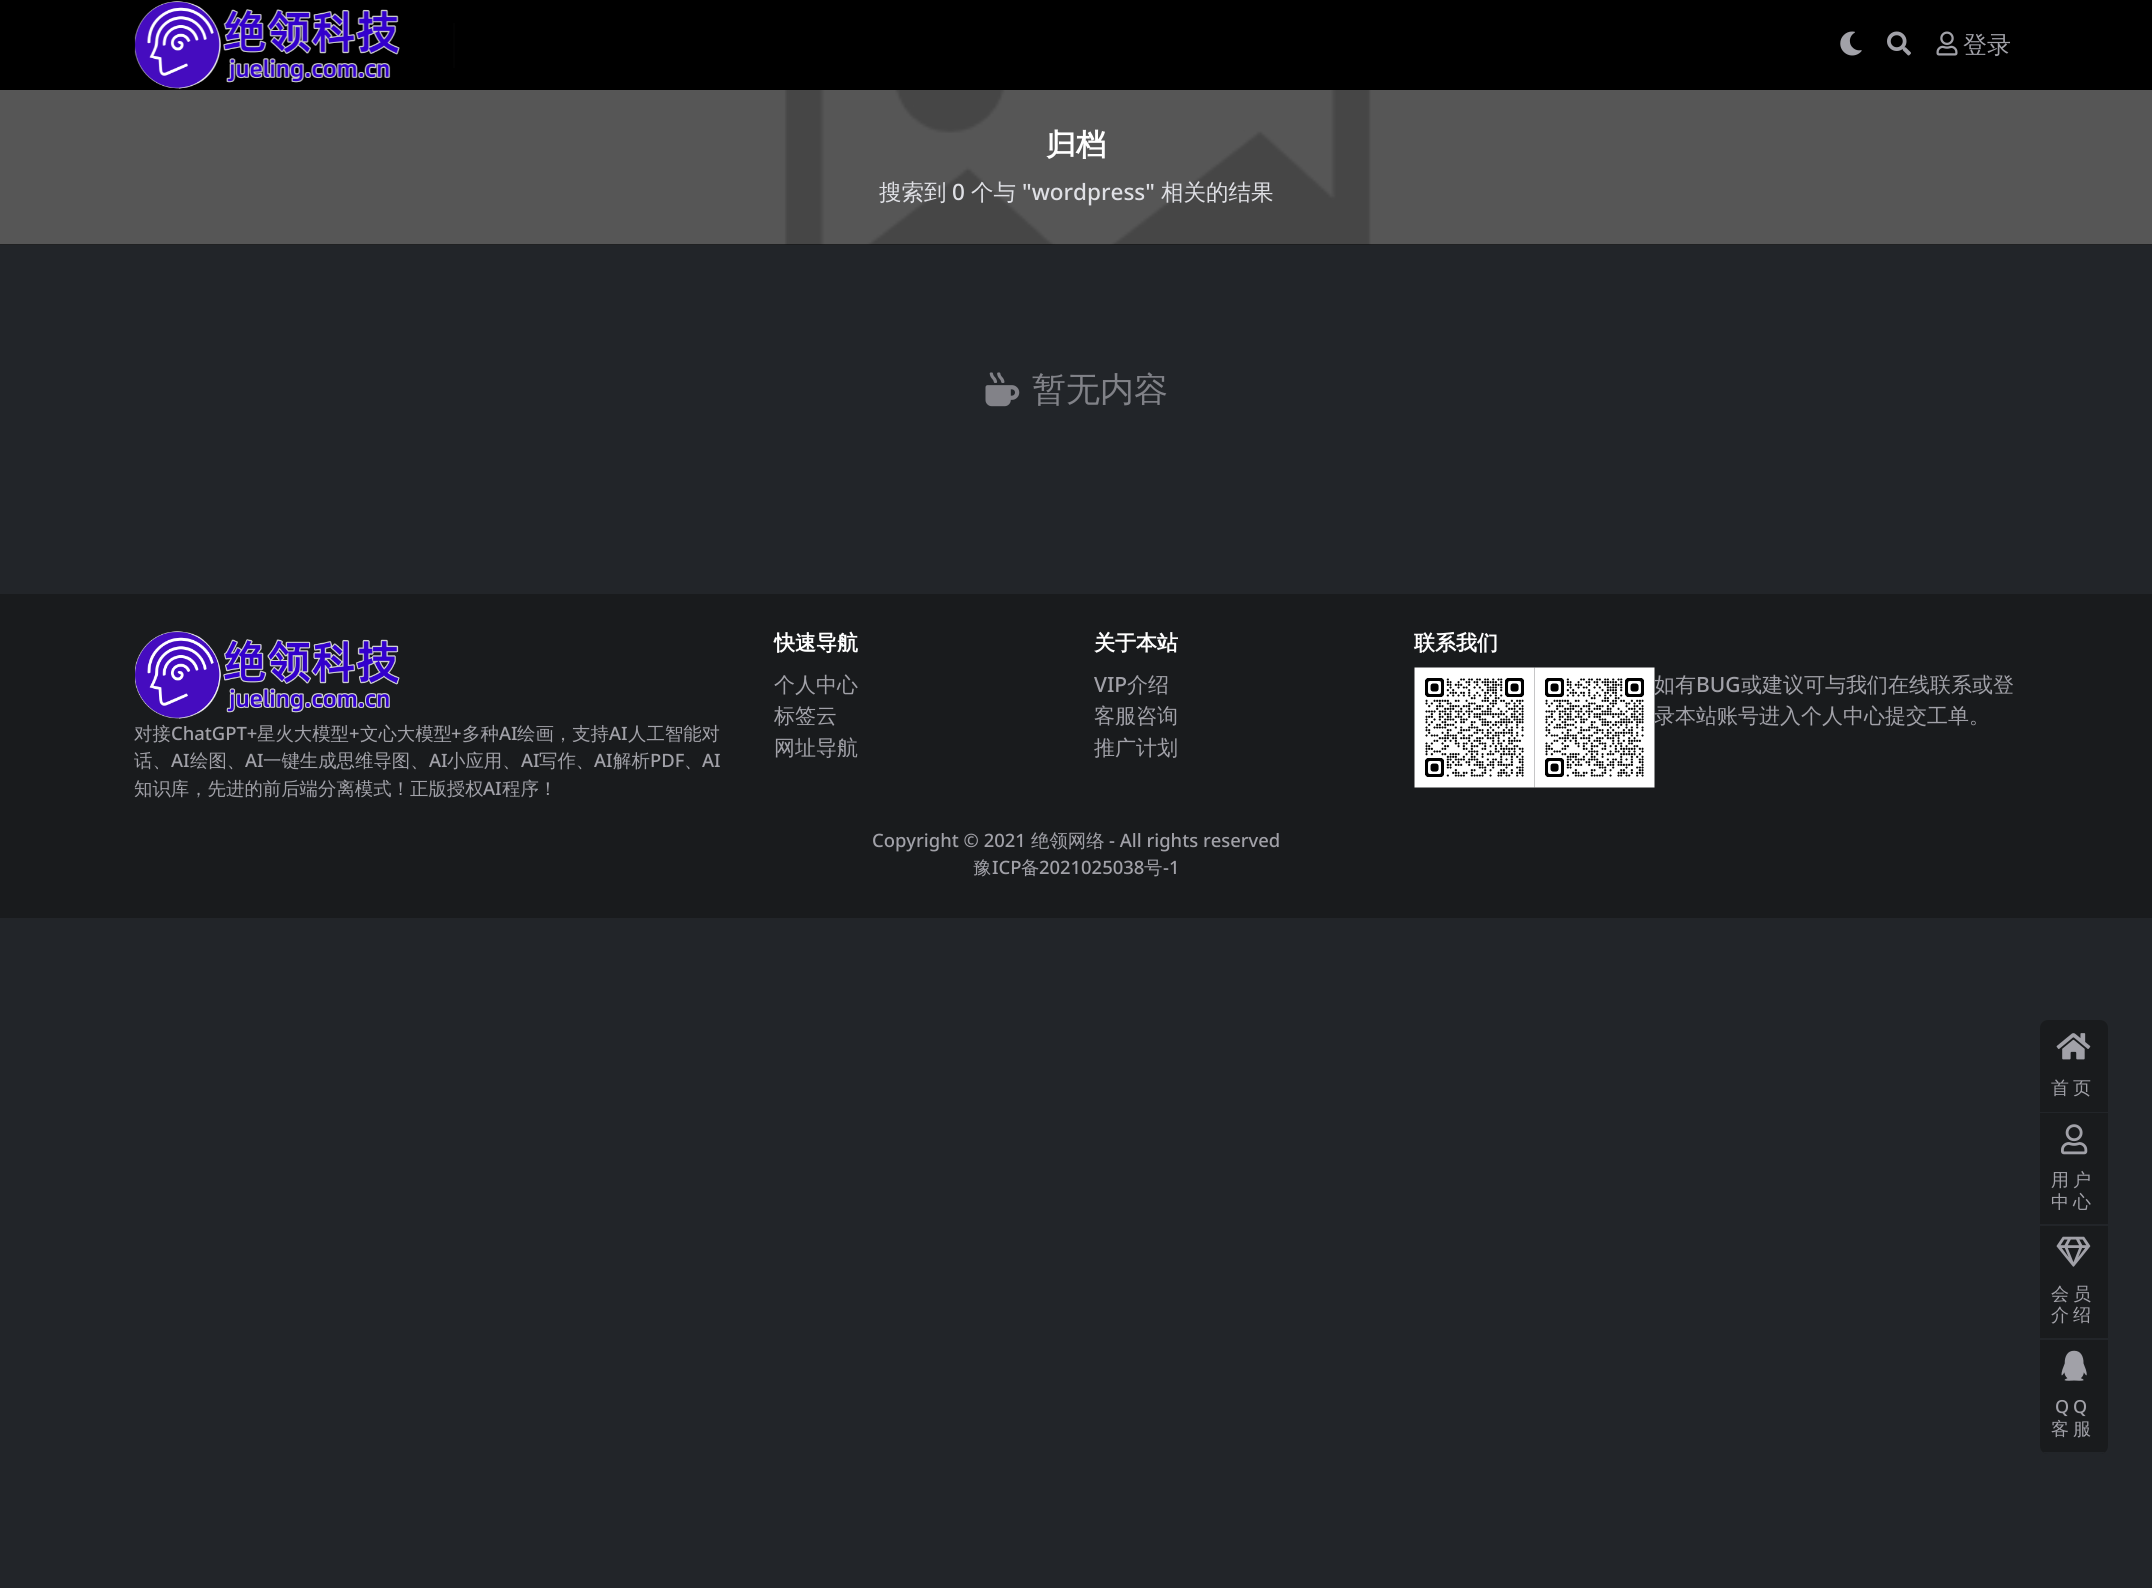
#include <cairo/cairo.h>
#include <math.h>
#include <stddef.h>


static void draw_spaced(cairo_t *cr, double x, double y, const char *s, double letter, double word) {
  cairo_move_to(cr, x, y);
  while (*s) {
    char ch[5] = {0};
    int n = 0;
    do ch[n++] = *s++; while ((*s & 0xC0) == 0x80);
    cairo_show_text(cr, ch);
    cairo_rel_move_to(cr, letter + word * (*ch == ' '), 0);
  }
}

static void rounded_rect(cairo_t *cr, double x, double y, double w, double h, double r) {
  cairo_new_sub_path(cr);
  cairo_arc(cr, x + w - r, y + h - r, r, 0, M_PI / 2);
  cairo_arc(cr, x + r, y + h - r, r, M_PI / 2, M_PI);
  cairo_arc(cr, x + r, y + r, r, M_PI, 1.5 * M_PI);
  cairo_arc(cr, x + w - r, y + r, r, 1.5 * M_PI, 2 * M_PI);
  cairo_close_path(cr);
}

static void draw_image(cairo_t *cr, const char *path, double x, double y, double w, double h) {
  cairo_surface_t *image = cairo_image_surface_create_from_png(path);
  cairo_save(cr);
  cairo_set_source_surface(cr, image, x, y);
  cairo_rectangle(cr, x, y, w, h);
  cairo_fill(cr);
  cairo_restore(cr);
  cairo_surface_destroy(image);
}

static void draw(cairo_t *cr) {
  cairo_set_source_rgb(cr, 34 / 255.0, 37 / 255.0, 41 / 255.0);
  cairo_paint(cr);
  cairo_set_source_rgb(cr, 14 / 255.0, 15 / 255.0, 16 / 255.0);
  cairo_rectangle(cr, 0, 244, 2152, 1);
  cairo_fill(cr);
  cairo_set_source_rgb(cr, 0, 0, 0);
  cairo_rectangle(cr, 0, 0, 2152, 90);
  cairo_fill(cr);
  draw_image(cr, "images/1.png", 134, 1, 266, 88);
  cairo_set_source_rgb(cr, 3 / 255.0, 3 / 255.0, 3 / 255.0);
  cairo_rectangle(cr, 453, 23, 2, 45);
  cairo_fill(cr);
  draw_image(cr, "images/2.png", 1840, 31, 22, 25);
  draw_image(cr, "images/3.png", 1887, 31, 24, 25);
  draw_image(cr, "images/4.png", 1936, 31, 22, 25);
  draw_image(cr, "images/5.png", 0, 90, 2152, 155);
  draw_image(cr, "images/6.png", 985, 372, 35, 35);
  cairo_set_source_rgb(cr, 25 / 255.0, 27 / 255.0, 29 / 255.0);
  cairo_rectangle(cr, 0, 594, 2152, 324);
  cairo_fill(cr);
  draw_image(cr, "images/7.png", 1414, 667, 121, 121);
  draw_image(cr, "images/8.png", 1534, 667, 121, 121);
  draw_image(cr, "images/9.png", 135, 631, 265, 88);
  cairo_new_path(cr);
  cairo_move_to(cr, 2048, 1020);
  cairo_line_to(cr, 2100, 1020);
  cairo_curve_to(cr, 2104.5, 1020, 2108, 1023.5, 2108, 1028);
  cairo_line_to(cr, 2108, 1113);
  cairo_line_to(cr, 2040, 1113);
  cairo_line_to(cr, 2040, 1028);
  cairo_curve_to(cr, 2040, 1023.5, 2043.5, 1020, 2048, 1020);
  cairo_close_path(cr);
  cairo_fill(cr);
  cairo_set_source_rgb(cr, 34 / 255.0, 37 / 255.0, 41 / 255.0);
  cairo_rectangle(cr, 2040, 1112, 68, 1);
  cairo_fill(cr);
  draw_image(cr, "images/10.png", 2056, 1033, 35, 27);
  cairo_set_source_rgb(cr, 25 / 255.0, 27 / 255.0, 29 / 255.0);
  cairo_rectangle(cr, 2040, 1113, 68, 111);
  cairo_fill(cr);
  draw_image(cr, "images/11.png", 2061, 1124, 27, 31);
  cairo_rectangle(cr, 2040, 1226, 68, 112);
  cairo_fill(cr);
  draw_image(cr, "images/12.png", 2056, 1236, 35, 31);
  cairo_new_path(cr);
  cairo_move_to(cr, 2040, 1340);
  cairo_line_to(cr, 2108, 1340);
  cairo_line_to(cr, 2108, 1446);
  cairo_curve_to(cr, 2108, 1450.5, 2104.5, 1454, 2100, 1454);
  cairo_line_to(cr, 2048, 1454);
  cairo_curve_to(cr, 2043.5, 1454, 2040, 1450.5, 2040, 1446);
  cairo_close_path(cr);
  cairo_fill(cr);
  cairo_save(cr);
  rounded_rect(cr, 2040, 1020, 68, 434, 8);
  cairo_clip(cr);
  cairo_set_source_rgb(cr, 34 / 255.0, 37 / 255.0, 41 / 255.0);
  cairo_rectangle(cr, 2040, 1452, 68, 2);
  cairo_fill(cr);
  cairo_restore(cr);
  draw_image(cr, "images/13.png", 2061, 1350, 26, 31);
  cairo_select_font_face(cr, "WenQuanYi Zen Hei Medium", CAIRO_FONT_SLANT_NORMAL, CAIRO_FONT_WEIGHT_NORMAL);
  cairo_set_font_size(cr, 24);
  cairo_set_source_rgb(cr, 161 / 255.0, 161 / 255.0, 168 / 255.0);
  cairo_move_to(cr, 1963, 53);
  cairo_show_text(cr, "登录");
  cairo_select_font_face(cr, "WenQuanYi Zen Hei", CAIRO_FONT_SLANT_NORMAL, CAIRO_FONT_WEIGHT_BOLD);
  cairo_set_font_size(cr, 30);
  cairo_set_source_rgb(cr, 1, 1, 1);
  cairo_move_to(cr, 1046, 155);
  cairo_show_text(cr, "归档");
  cairo_select_font_face(cr, "WenQuanYi Zen Hei Medium", CAIRO_FONT_SLANT_NORMAL, CAIRO_FONT_WEIGHT_NORMAL);
  cairo_set_font_size(cr, 22.5);
  cairo_set_source_rgb(cr, 223 / 255.0, 224 / 255.0, 229 / 255.0);
  cairo_move_to(cr, 879, 200);
  cairo_show_text(cr, "搜索到");
  cairo_select_font_face(cr, "Noto Sans Medium", CAIRO_FONT_SLANT_NORMAL, CAIRO_FONT_WEIGHT_NORMAL);
  cairo_move_to(cr, 952, 200);
  cairo_show_text(cr, "0");
  cairo_select_font_face(cr, "WenQuanYi Zen Hei Medium", CAIRO_FONT_SLANT_NORMAL, CAIRO_FONT_WEIGHT_NORMAL);
  cairo_move_to(cr, 971, 200);
  cairo_show_text(cr, "个与");
  cairo_select_font_face(cr, "Noto Sans Medium", CAIRO_FONT_SLANT_NORMAL, CAIRO_FONT_WEIGHT_NORMAL);
  cairo_move_to(cr, 1022, 200);
  cairo_show_text(cr, "\"wordpress\"");
  cairo_select_font_face(cr, "WenQuanYi Zen Hei Medium", CAIRO_FONT_SLANT_NORMAL, CAIRO_FONT_WEIGHT_NORMAL);
  cairo_move_to(cr, 1161, 200);
  cairo_show_text(cr, "相关的结果");
  cairo_set_font_size(cr, 34);
  cairo_set_source_rgb(cr, 129 / 255.0, 130 / 255.0, 136 / 255.0);
  cairo_move_to(cr, 1032, 401);
  cairo_show_text(cr, "暂无内容");
  cairo_select_font_face(cr, "WenQuanYi Zen Hei", CAIRO_FONT_SLANT_NORMAL, CAIRO_FONT_WEIGHT_BOLD);
  cairo_set_font_size(cr, 21);
  cairo_set_source_rgb(cr, 1, 1, 1);
  cairo_move_to(cr, 774, 650);
  cairo_show_text(cr, "快速导航");
  cairo_select_font_face(cr, "WenQuanYi Zen Hei Medium", CAIRO_FONT_SLANT_NORMAL, CAIRO_FONT_WEIGHT_NORMAL);
  cairo_set_source_rgb(cr, 161 / 255.0, 161 / 255.0, 168 / 255.0);
  cairo_move_to(cr, 774, 692);
  cairo_show_text(cr, "个人中心");
  cairo_move_to(cr, 774, 723);
  cairo_show_text(cr, "标签云");
  cairo_move_to(cr, 774, 755);
  cairo_show_text(cr, "网址导航");
  cairo_select_font_face(cr, "WenQuanYi Zen Hei", CAIRO_FONT_SLANT_NORMAL, CAIRO_FONT_WEIGHT_BOLD);
  cairo_set_source_rgb(cr, 1, 1, 1);
  cairo_move_to(cr, 1094, 650);
  cairo_show_text(cr, "关于本站");
  cairo_select_font_face(cr, "Noto Sans Medium", CAIRO_FONT_SLANT_NORMAL, CAIRO_FONT_WEIGHT_NORMAL);
  cairo_set_source_rgb(cr, 161 / 255.0, 161 / 255.0, 168 / 255.0);
  cairo_move_to(cr, 1094, 692);
  cairo_show_text(cr, "VIP");
  cairo_select_font_face(cr, "WenQuanYi Zen Hei Medium", CAIRO_FONT_SLANT_NORMAL, CAIRO_FONT_WEIGHT_NORMAL);
  cairo_move_to(cr, 1127, 692);
  cairo_show_text(cr, "介绍");
  cairo_move_to(cr, 1094, 723);
  cairo_show_text(cr, "客服咨询");
  cairo_move_to(cr, 1094, 755);
  cairo_show_text(cr, "推广计划");
  cairo_select_font_face(cr, "WenQuanYi Zen Hei", CAIRO_FONT_SLANT_NORMAL, CAIRO_FONT_WEIGHT_BOLD);
  cairo_set_source_rgb(cr, 1, 1, 1);
  cairo_move_to(cr, 1414, 650);
  cairo_show_text(cr, "联系我们");
  cairo_select_font_face(cr, "WenQuanYi Zen Hei Medium", CAIRO_FONT_SLANT_NORMAL, CAIRO_FONT_WEIGHT_NORMAL);
  cairo_set_source_rgb(cr, 161 / 255.0, 161 / 255.0, 168 / 255.0);
  cairo_move_to(cr, 1654, 692);
  cairo_show_text(cr, "如有");
  cairo_select_font_face(cr, "Noto Sans Medium", CAIRO_FONT_SLANT_NORMAL, CAIRO_FONT_WEIGHT_NORMAL);
  cairo_move_to(cr, 1696, 692);
  cairo_show_text(cr, "BUG");
  cairo_select_font_face(cr, "WenQuanYi Zen Hei Medium", CAIRO_FONT_SLANT_NORMAL, CAIRO_FONT_WEIGHT_NORMAL);
  cairo_move_to(cr, 1741, 692);
  cairo_show_text(cr, "或建议可与我们在线联系或登");
  cairo_move_to(cr, 1654, 723);
  cairo_show_text(cr, "录本站账号进入个人中心提交工单。");
  cairo_set_font_size(cr, 18.4);
  cairo_move_to(cr, 134, 740);
  cairo_show_text(cr, "对接");
  cairo_select_font_face(cr, "Noto Sans Medium", CAIRO_FONT_SLANT_NORMAL, CAIRO_FONT_WEIGHT_NORMAL);
  cairo_move_to(cr, 171, 740);
  cairo_show_text(cr, "ChatGPT+");
  cairo_select_font_face(cr, "WenQuanYi Zen Hei Medium", CAIRO_FONT_SLANT_NORMAL, CAIRO_FONT_WEIGHT_NORMAL);
  cairo_move_to(cr, 257, 740);
  cairo_show_text(cr, "星火大模型");
  cairo_select_font_face(cr, "Noto Sans Medium", CAIRO_FONT_SLANT_NORMAL, CAIRO_FONT_WEIGHT_NORMAL);
  cairo_move_to(cr, 349, 740);
  cairo_show_text(cr, "+");
  cairo_select_font_face(cr, "WenQuanYi Zen Hei Medium", CAIRO_FONT_SLANT_NORMAL, CAIRO_FONT_WEIGHT_NORMAL);
  cairo_move_to(cr, 360, 740);
  cairo_show_text(cr, "文心大模型");
  cairo_select_font_face(cr, "Noto Sans Medium", CAIRO_FONT_SLANT_NORMAL, CAIRO_FONT_WEIGHT_NORMAL);
  cairo_move_to(cr, 451, 740);
  cairo_show_text(cr, "+");
  cairo_select_font_face(cr, "WenQuanYi Zen Hei Medium", CAIRO_FONT_SLANT_NORMAL, CAIRO_FONT_WEIGHT_NORMAL);
  cairo_move_to(cr, 462, 740);
  cairo_show_text(cr, "多种");
  cairo_select_font_face(cr, "Noto Sans Medium", CAIRO_FONT_SLANT_NORMAL, CAIRO_FONT_WEIGHT_NORMAL);
  cairo_move_to(cr, 499, 740);
  cairo_show_text(cr, "AI");
  cairo_select_font_face(cr, "WenQuanYi Zen Hei Medium", CAIRO_FONT_SLANT_NORMAL, CAIRO_FONT_WEIGHT_NORMAL);
  cairo_move_to(cr, 517, 740);
  cairo_show_text(cr, "绘画，支持");
  cairo_select_font_face(cr, "Noto Sans Medium", CAIRO_FONT_SLANT_NORMAL, CAIRO_FONT_WEIGHT_NORMAL);
  cairo_move_to(cr, 609, 740);
  cairo_show_text(cr, "AI");
  cairo_select_font_face(cr, "WenQuanYi Zen Hei Medium", CAIRO_FONT_SLANT_NORMAL, CAIRO_FONT_WEIGHT_NORMAL);
  cairo_move_to(cr, 628, 740);
  cairo_show_text(cr, "人工智能对");
  cairo_move_to(cr, 134, 767);
  cairo_show_text(cr, "话、");
  cairo_select_font_face(cr, "Noto Sans Medium", CAIRO_FONT_SLANT_NORMAL, CAIRO_FONT_WEIGHT_NORMAL);
  cairo_move_to(cr, 171, 767);
  cairo_show_text(cr, "AI");
  cairo_select_font_face(cr, "WenQuanYi Zen Hei Medium", CAIRO_FONT_SLANT_NORMAL, CAIRO_FONT_WEIGHT_NORMAL);
  cairo_move_to(cr, 190, 767);
  cairo_show_text(cr, "绘图、");
  cairo_select_font_face(cr, "Noto Sans Medium", CAIRO_FONT_SLANT_NORMAL, CAIRO_FONT_WEIGHT_NORMAL);
  cairo_move_to(cr, 245, 767);
  cairo_show_text(cr, "AI");
  cairo_select_font_face(cr, "WenQuanYi Zen Hei Medium", CAIRO_FONT_SLANT_NORMAL, CAIRO_FONT_WEIGHT_NORMAL);
  cairo_move_to(cr, 263, 767);
  cairo_show_text(cr, "一键生成思维导图、");
  cairo_select_font_face(cr, "Noto Sans Medium", CAIRO_FONT_SLANT_NORMAL, CAIRO_FONT_WEIGHT_NORMAL);
  cairo_move_to(cr, 429, 767);
  cairo_show_text(cr, "AI");
  cairo_select_font_face(cr, "WenQuanYi Zen Hei Medium", CAIRO_FONT_SLANT_NORMAL, CAIRO_FONT_WEIGHT_NORMAL);
  cairo_move_to(cr, 447, 767);
  cairo_show_text(cr, "小应用、");
  cairo_select_font_face(cr, "Noto Sans Medium", CAIRO_FONT_SLANT_NORMAL, CAIRO_FONT_WEIGHT_NORMAL);
  cairo_move_to(cr, 521, 767);
  cairo_show_text(cr, "AI");
  cairo_select_font_face(cr, "WenQuanYi Zen Hei Medium", CAIRO_FONT_SLANT_NORMAL, CAIRO_FONT_WEIGHT_NORMAL);
  cairo_move_to(cr, 539, 767);
  cairo_show_text(cr, "写作、");
  cairo_select_font_face(cr, "Noto Sans Medium", CAIRO_FONT_SLANT_NORMAL, CAIRO_FONT_WEIGHT_NORMAL);
  cairo_move_to(cr, 594, 767);
  cairo_show_text(cr, "AI");
  cairo_select_font_face(cr, "WenQuanYi Zen Hei Medium", CAIRO_FONT_SLANT_NORMAL, CAIRO_FONT_WEIGHT_NORMAL);
  cairo_move_to(cr, 613, 767);
  cairo_show_text(cr, "解析");
  cairo_select_font_face(cr, "Noto Sans Medium", CAIRO_FONT_SLANT_NORMAL, CAIRO_FONT_WEIGHT_NORMAL);
  cairo_move_to(cr, 650, 767);
  cairo_show_text(cr, "PDF");
  cairo_move_to(cr, 702, 767);
  cairo_show_text(cr, "AI");
  cairo_select_font_face(cr, "WenQuanYi Zen Hei Medium", CAIRO_FONT_SLANT_NORMAL, CAIRO_FONT_WEIGHT_NORMAL);
  cairo_move_to(cr, 684, 767);
  cairo_show_text(cr, "、");
  cairo_move_to(cr, 134, 795);
  cairo_show_text(cr, "知识库，先进的前后端分离模式！正版授权");
  cairo_select_font_face(cr, "Noto Sans Medium", CAIRO_FONT_SLANT_NORMAL, CAIRO_FONT_WEIGHT_NORMAL);
  cairo_move_to(cr, 483, 795);
  cairo_show_text(cr, "AI");
  cairo_select_font_face(cr, "WenQuanYi Zen Hei Medium", CAIRO_FONT_SLANT_NORMAL, CAIRO_FONT_WEIGHT_NORMAL);
  cairo_move_to(cr, 502, 795);
  cairo_show_text(cr, "程序！");
  cairo_select_font_face(cr, "Noto Sans Medium", CAIRO_FONT_SLANT_NORMAL, CAIRO_FONT_WEIGHT_NORMAL);
  cairo_move_to(cr, 872, 847);
  cairo_show_text(cr, "Copyright © 2021");
  cairo_select_font_face(cr, "WenQuanYi Zen Hei Medium", CAIRO_FONT_SLANT_NORMAL, CAIRO_FONT_WEIGHT_NORMAL);
  cairo_move_to(cr, 1031, 847);
  cairo_show_text(cr, "绝领网络");
  cairo_select_font_face(cr, "Noto Sans Medium", CAIRO_FONT_SLANT_NORMAL, CAIRO_FONT_WEIGHT_NORMAL);
  cairo_move_to(cr, 1109, 847);
  cairo_show_text(cr, "- All rights reserved");
  cairo_select_font_face(cr, "WenQuanYi Zen Hei Medium", CAIRO_FONT_SLANT_NORMAL, CAIRO_FONT_WEIGHT_NORMAL);
  cairo_move_to(cr, 973, 874);
  cairo_show_text(cr, "豫");
  cairo_select_font_face(cr, "Noto Sans Medium", CAIRO_FONT_SLANT_NORMAL, CAIRO_FONT_WEIGHT_NORMAL);
  cairo_move_to(cr, 992, 874);
  cairo_show_text(cr, "ICP");
  cairo_select_font_face(cr, "WenQuanYi Zen Hei Medium", CAIRO_FONT_SLANT_NORMAL, CAIRO_FONT_WEIGHT_NORMAL);
  cairo_move_to(cr, 1021, 874);
  cairo_show_text(cr, "备");
  cairo_select_font_face(cr, "Noto Sans Medium", CAIRO_FONT_SLANT_NORMAL, CAIRO_FONT_WEIGHT_NORMAL);
  cairo_move_to(cr, 1039, 874);
  cairo_show_text(cr, "2021025038");
  cairo_select_font_face(cr, "WenQuanYi Zen Hei Medium", CAIRO_FONT_SLANT_NORMAL, CAIRO_FONT_WEIGHT_NORMAL);
  cairo_move_to(cr, 1144, 874);
  cairo_show_text(cr, "号");
  cairo_select_font_face(cr, "Noto Sans Medium", CAIRO_FONT_SLANT_NORMAL, CAIRO_FONT_WEIGHT_NORMAL);
  cairo_move_to(cr, 1163, 874);
  cairo_show_text(cr, "-1");
  cairo_select_font_face(cr, "WenQuanYi Zen Hei Medium", CAIRO_FONT_SLANT_NORMAL, CAIRO_FONT_WEIGHT_NORMAL);
  cairo_set_font_size(cr, 18);
  draw_spaced(cr, 2051, 1094, "首页", 4, 0);
  draw_spaced(cr, 2051, 1186, "用户", 4, 0);
  draw_spaced(cr, 2051, 1208, "中心", 4, 0);
  draw_spaced(cr, 2051, 1300, "会员", 4, 0);
  draw_spaced(cr, 2051, 1321, "介绍", 4, 0);
  cairo_select_font_face(cr, "Noto Sans Medium", CAIRO_FONT_SLANT_NORMAL, CAIRO_FONT_WEIGHT_NORMAL);
  draw_spaced(cr, 2055, 1413, "QQ", 4, 0);
  cairo_select_font_face(cr, "WenQuanYi Zen Hei Medium", CAIRO_FONT_SLANT_NORMAL, CAIRO_FONT_WEIGHT_NORMAL);
  draw_spaced(cr, 2051, 1435, "客服", 4, 0);
}

int main(void) {
  cairo_surface_t *surface = cairo_image_surface_create(CAIRO_FORMAT_RGB24, 2152, 1588);
  cairo_t *cr = cairo_create(surface);
  cairo_font_options_t *options = cairo_font_options_create();
  cairo_font_options_set_hint_metrics(options, CAIRO_HINT_METRICS_OFF);
  cairo_font_options_set_hint_style(options, CAIRO_HINT_STYLE_NONE);
  cairo_set_font_options(cr, options);
  cairo_set_miter_limit(cr, 4);
  draw(cr);
  cairo_surface_write_to_png(surface, "out.png");
  cairo_font_options_destroy(options);
  cairo_destroy(cr);
  cairo_surface_destroy(surface);
  return 0;
}
